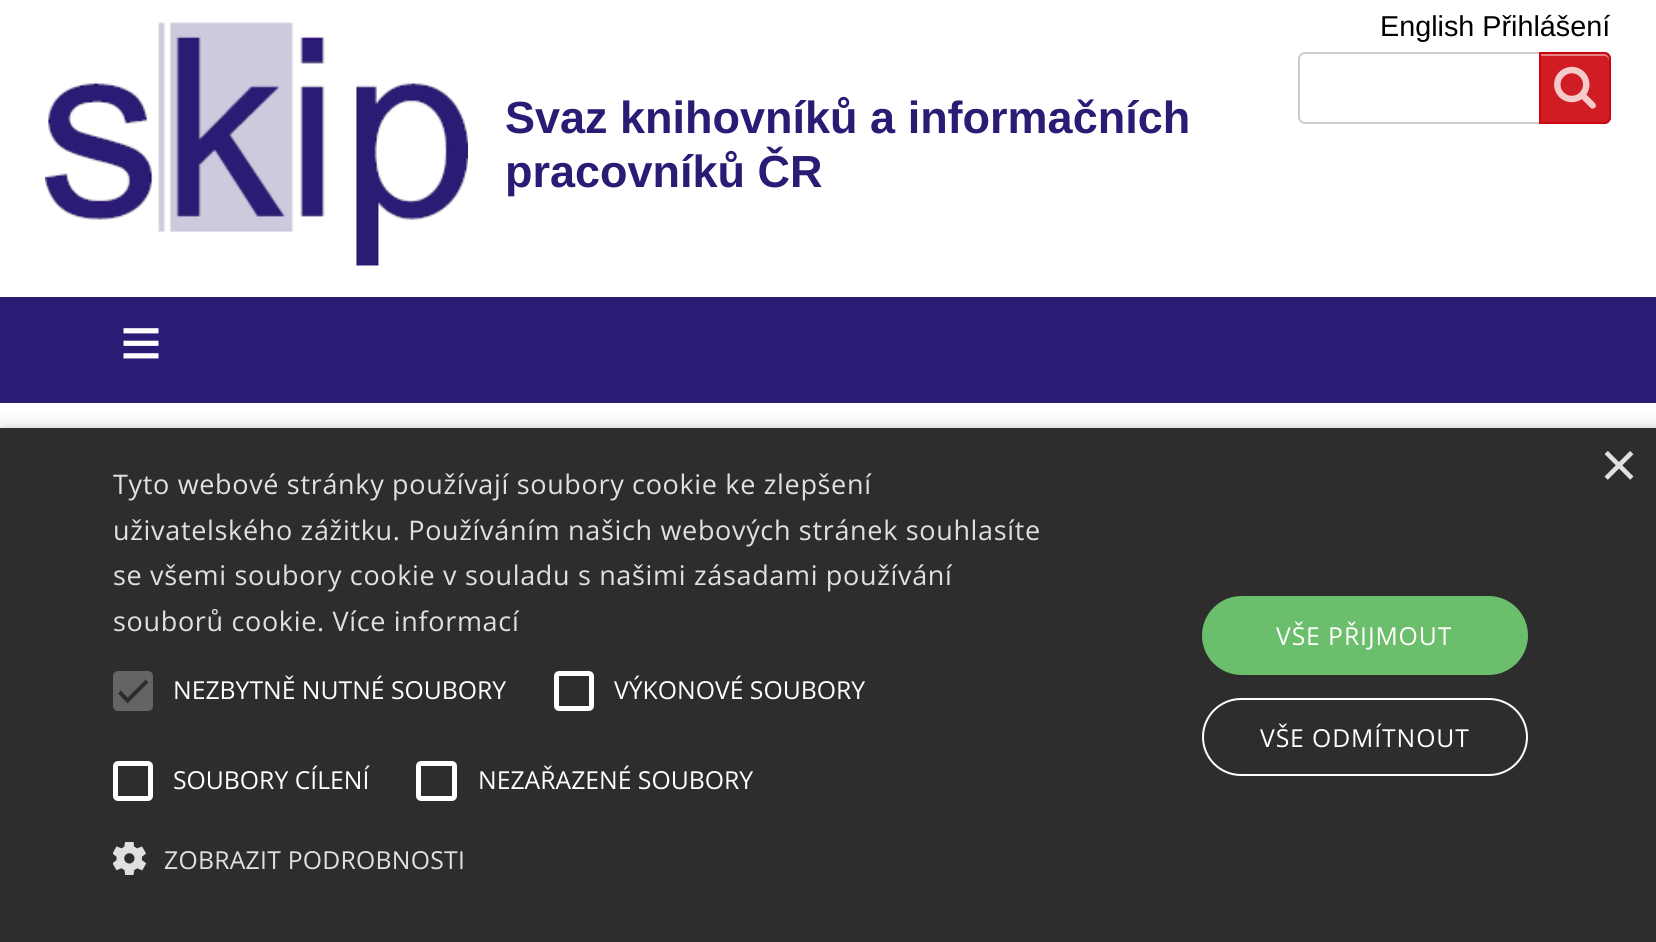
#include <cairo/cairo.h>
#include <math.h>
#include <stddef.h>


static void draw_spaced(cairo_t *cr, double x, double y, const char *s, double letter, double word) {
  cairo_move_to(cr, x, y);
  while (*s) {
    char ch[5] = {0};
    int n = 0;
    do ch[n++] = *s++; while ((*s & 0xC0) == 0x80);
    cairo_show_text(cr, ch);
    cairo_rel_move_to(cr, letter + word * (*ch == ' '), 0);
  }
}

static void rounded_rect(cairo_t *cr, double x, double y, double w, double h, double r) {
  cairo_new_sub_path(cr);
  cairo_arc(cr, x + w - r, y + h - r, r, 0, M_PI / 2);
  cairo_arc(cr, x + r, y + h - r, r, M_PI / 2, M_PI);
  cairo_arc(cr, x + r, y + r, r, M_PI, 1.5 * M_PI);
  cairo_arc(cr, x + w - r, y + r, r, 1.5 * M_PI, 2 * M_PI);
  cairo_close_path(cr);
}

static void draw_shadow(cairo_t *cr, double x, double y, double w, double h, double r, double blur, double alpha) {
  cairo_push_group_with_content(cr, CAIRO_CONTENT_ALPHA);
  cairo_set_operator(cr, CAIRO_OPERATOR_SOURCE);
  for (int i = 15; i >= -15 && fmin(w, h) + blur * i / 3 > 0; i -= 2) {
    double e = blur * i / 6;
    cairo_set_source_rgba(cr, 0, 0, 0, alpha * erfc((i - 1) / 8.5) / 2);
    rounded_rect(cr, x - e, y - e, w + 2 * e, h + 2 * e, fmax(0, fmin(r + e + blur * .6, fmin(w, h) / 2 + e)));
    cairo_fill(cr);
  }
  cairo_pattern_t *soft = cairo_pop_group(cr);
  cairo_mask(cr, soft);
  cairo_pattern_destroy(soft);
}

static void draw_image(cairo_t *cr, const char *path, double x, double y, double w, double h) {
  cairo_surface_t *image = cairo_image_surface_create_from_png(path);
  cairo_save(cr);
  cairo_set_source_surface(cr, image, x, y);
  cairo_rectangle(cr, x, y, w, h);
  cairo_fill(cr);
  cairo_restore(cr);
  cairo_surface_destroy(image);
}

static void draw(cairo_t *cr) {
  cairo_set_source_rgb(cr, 1, 1, 1);
  cairo_paint(cr);
  rounded_rect(cr, 1299, 53, 311, 70, 6);
  cairo_set_source_rgb(cr, 204 / 255.0, 204 / 255.0, 204 / 255.0);
  cairo_stroke(cr);
  cairo_set_source_rgba(cr, 203 / 255.0, 5 / 255.0, 13 / 255.0, 0.9);
  cairo_new_path(cr);
  cairo_move_to(cr, 1539, 52);
  cairo_line_to(cr, 1604, 52);
  cairo_curve_to(cr, 1608, 52, 1611, 55, 1611, 59);
  cairo_line_to(cr, 1611, 117);
  cairo_curve_to(cr, 1611, 121, 1608, 124, 1604, 124);
  cairo_line_to(cr, 1539, 124);
  cairo_close_path(cr);
  cairo_fill(cr);
  draw_image(cr, "images/1.png", 1554, 66, 42, 43);
  cairo_set_source_rgb(cr, 229 / 255.0, 131 / 255.0, 135 / 255.0);
  cairo_new_path(cr);
  cairo_move_to(cr, 1541, 56);
  cairo_line_to(cr, 1604, 56);
  cairo_curve_to(cr, 1607, 56, 1609, 58, 1609, 61);
  cairo_line_to(cr, 1609, 59);
  cairo_curve_to(cr, 1609, 56, 1607, 54, 1604, 54);
  cairo_line_to(cr, 1541, 54);
  cairo_close_path(cr);
  cairo_fill(cr);
  cairo_new_path(cr);
  cairo_move_to(cr, 1540, 53);
  cairo_line_to(cr, 1604, 53);
  cairo_curve_to(cr, 1607.5, 53, 1610, 55.5, 1610, 59);
  cairo_line_to(cr, 1610, 117);
  cairo_curve_to(cr, 1610, 120.5, 1607.5, 123, 1604, 123);
  cairo_line_to(cr, 1540, 123);
  cairo_close_path(cr);
  cairo_set_source_rgba(cr, 203 / 255.0, 5 / 255.0, 13 / 255.0, 0.9);
  cairo_stroke(cr);
  draw_image(cr, "images/2.png", 45, 22, 423, 244);
  cairo_set_source_rgb(cr, 43 / 255.0, 27 / 255.0, 116 / 255.0);
  cairo_rectangle(cr, 0, 297, 1656, 106);
  cairo_fill(cr);
  cairo_set_source_rgb(cr, 0, 0, 0);
  draw_shadow(cr, 2, 432, 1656, 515, 0, 9, 0.35);
  cairo_set_source_rgb(cr, 45 / 255.0, 45 / 255.0, 45 / 255.0);
  cairo_rectangle(cr, 0, 428, 1656, 514);
  cairo_fill(cr);
  cairo_set_source_rgb(cr, 100 / 255.0, 100 / 255.0, 100 / 255.0);
  rounded_rect(cr, 113, 671, 40, 40, 5);
  cairo_fill(cr);
  cairo_new_path(cr);
  cairo_move_to(cr, 119.5, 692);
  cairo_line_to(cr, 127.5, 700.5);
  cairo_line_to(cr, 147, 681);
  cairo_set_source_rgb(cr, 45 / 255.0, 45 / 255.0, 45 / 255.0);
  cairo_set_line_width(cr, 4.1);
  cairo_stroke(cr);
  rounded_rect(cr, 556.5, 673.5, 35, 35, 2.5);
  cairo_set_source_rgb(cr, 1, 1, 1);
  cairo_set_line_width(cr, 5);
  cairo_stroke(cr);
  rounded_rect(cr, 115.5, 763.5, 35, 35, 2.5);
  cairo_stroke(cr);
  rounded_rect(cr, 418.5, 763.5, 36, 35, 2.5);
  cairo_stroke(cr);
  draw_image(cr, "images/3.png", 113, 842, 33, 33);
  cairo_set_source_rgb(cr, 107 / 255.0, 190 / 255.0, 107 / 255.0);
  rounded_rect(cr, 1202, 596, 326, 79, 39.5);
  cairo_fill(cr);
  rounded_rect(cr, 1203, 699, 324, 76, 38);
  cairo_set_source_rgb(cr, 1, 1, 1);
  cairo_set_line_width(cr, 2);
  cairo_stroke(cr);
  cairo_select_font_face(cr, "Liberation Sans", CAIRO_FONT_SLANT_NORMAL, CAIRO_FONT_WEIGHT_NORMAL);
  cairo_set_font_size(cr, 28.75);
  cairo_set_source_rgb(cr, 0, 0, 0);
  cairo_move_to(cr, 1380, 36);
  cairo_show_text(cr, "English Přihlášení");
  cairo_select_font_face(cr, "Liberation Sans", CAIRO_FONT_SLANT_NORMAL, CAIRO_FONT_WEIGHT_BOLD);
  cairo_set_font_size(cr, 45);
  cairo_set_source_rgb(cr, 43 / 255.0, 27 / 255.0, 116 / 255.0);
  cairo_move_to(cr, 505, 133);
  cairo_show_text(cr, "Svaz knihovníků a informačních");
  cairo_move_to(cr, 505, 187);
  cairo_show_text(cr, "pracovníků ČR");
  cairo_set_font_size(cr, 72);
  cairo_set_source_rgb(cr, 1, 1, 1);
  cairo_move_to(cr, 120, 367);
  cairo_show_text(cr, "≡");
  cairo_select_font_face(cr, "Liberation Sans", CAIRO_FONT_SLANT_NORMAL, CAIRO_FONT_WEIGHT_NORMAL);
  cairo_set_font_size(cr, 65);
  cairo_set_source_rgb(cr, 224 / 255.0, 224 / 255.0, 224 / 255.0);
  cairo_move_to(cr, 1600, 487);
  cairo_show_text(cr, "×");
  cairo_select_font_face(cr, "Open Sans", CAIRO_FONT_SLANT_NORMAL, CAIRO_FONT_WEIGHT_NORMAL);
  cairo_set_font_size(cr, 27);
  draw_spaced(cr, 113, 494, "Tyto webové stránky používají soubory cookie ke zlepšení", 0.67, 0);
  draw_spaced(cr, 113, 540, "uživatelského zážitku. Používáním našich webových stránek souhlasíte", 0.67, 0);
  draw_spaced(cr, 113, 585, "se všemi soubory cookie v souladu s našimi zásadami používání", 0.67, 0);
  draw_spaced(cr, 113, 631, "souborů cookie. Více informací", 0.67, 0);
  cairo_set_font_size(cr, 24.75);
  cairo_set_source_rgb(cr, 1, 1, 1);
  cairo_move_to(cr, 173, 699);
  cairo_show_text(cr, "NEZBYTNĚ NUTNÉ SOUBORY");
  cairo_move_to(cr, 614, 699);
  cairo_show_text(cr, "VÝKONOVÉ SOUBORY");
  cairo_move_to(cr, 173, 789);
  cairo_show_text(cr, "SOUBORY CÍLENÍ");
  cairo_move_to(cr, 478, 789);
  cairo_show_text(cr, "NEZAŘAZENÉ SOUBORY");
  cairo_set_source_rgb(cr, 224 / 255.0, 224 / 255.0, 224 / 255.0);
  draw_spaced(cr, 164, 869, "ZOBRAZIT PODROBNOSTI", 0.25, 0);
  cairo_set_source_rgb(cr, 1, 1, 1);
  draw_spaced(cr, 1276, 645, "VŠE PŘIJMOUT", 0.9, 0);
  draw_spaced(cr, 1260, 747, "VŠE ODMÍTNOUT", 0.9, 0);
}

int main(void) {
  cairo_surface_t *surface = cairo_image_surface_create(CAIRO_FORMAT_RGB24, 1656, 942);
  cairo_t *cr = cairo_create(surface);
  cairo_font_options_t *options = cairo_font_options_create();
  cairo_font_options_set_hint_metrics(options, CAIRO_HINT_METRICS_OFF);
  cairo_font_options_set_hint_style(options, CAIRO_HINT_STYLE_NONE);
  cairo_set_font_options(cr, options);
  cairo_set_miter_limit(cr, 4);
  draw(cr);
  cairo_surface_write_to_png(surface, "out.png");
  cairo_font_options_destroy(options);
  cairo_destroy(cr);
  cairo_surface_destroy(surface);
  return 0;
}
